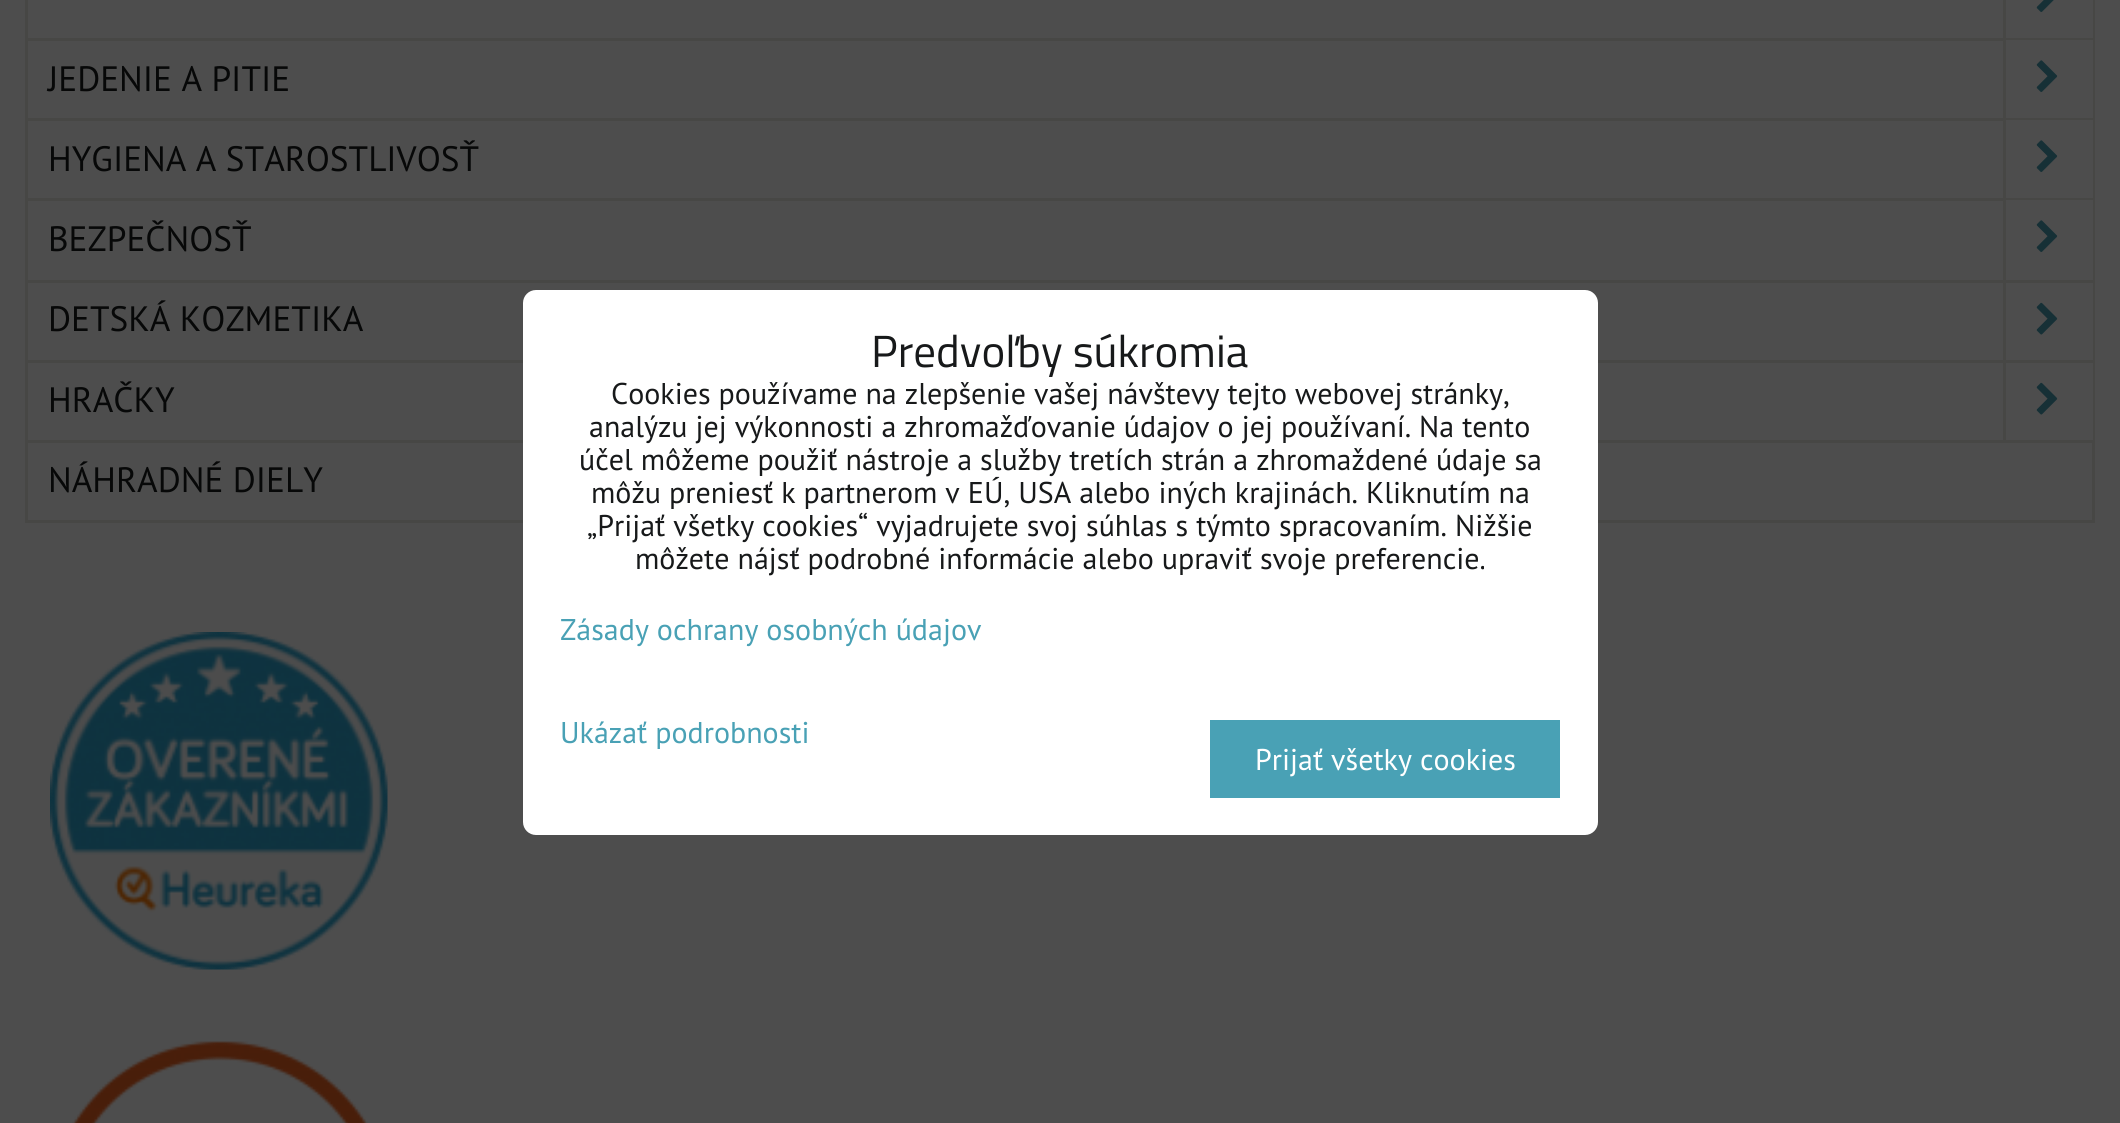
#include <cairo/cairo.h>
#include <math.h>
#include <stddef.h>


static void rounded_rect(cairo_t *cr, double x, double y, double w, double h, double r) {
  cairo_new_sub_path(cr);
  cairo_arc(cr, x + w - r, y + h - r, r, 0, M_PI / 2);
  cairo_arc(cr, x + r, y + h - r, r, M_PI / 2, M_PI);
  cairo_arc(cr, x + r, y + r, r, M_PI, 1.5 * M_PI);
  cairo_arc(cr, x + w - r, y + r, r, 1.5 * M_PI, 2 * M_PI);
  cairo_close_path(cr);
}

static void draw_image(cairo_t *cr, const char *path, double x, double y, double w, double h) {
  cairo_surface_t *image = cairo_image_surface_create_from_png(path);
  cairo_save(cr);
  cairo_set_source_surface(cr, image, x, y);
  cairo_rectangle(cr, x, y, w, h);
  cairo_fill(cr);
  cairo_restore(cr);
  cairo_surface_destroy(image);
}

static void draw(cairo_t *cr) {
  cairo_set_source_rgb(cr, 77 / 255.0, 77 / 255.0, 77 / 255.0);
  cairo_paint(cr);
  cairo_rectangle(cr, 26.5, -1.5, 2067, 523);
  cairo_set_source_rgb(cr, 71 / 255.0, 71 / 255.0, 69 / 255.0);
  cairo_set_line_width(cr, 3);
  cairo_stroke(cr);
  cairo_rectangle(cr, 28, 38, 2065, 3);
  cairo_fill(cr);
  cairo_set_source_rgb(cr, 77 / 255.0, 77 / 255.0, 77 / 255.0);
  cairo_rectangle(cr, 2092, 0, 1, 38);
  cairo_fill(cr);
  cairo_set_source_rgb(cr, 71 / 255.0, 71 / 255.0, 69 / 255.0);
  cairo_rectangle(cr, 2003, 0, 3, 38);
  cairo_fill(cr);
  draw_image(cr, "images/1.png", 2036, 0, 18, 12);
  cairo_rectangle(cr, 28, 118, 2065, 3);
  cairo_fill(cr);
  cairo_set_source_rgb(cr, 77 / 255.0, 77 / 255.0, 77 / 255.0);
  cairo_rectangle(cr, 2006, 40, 87, 78);
  cairo_fill(cr);
  cairo_set_source_rgb(cr, 71 / 255.0, 71 / 255.0, 69 / 255.0);
  cairo_rectangle(cr, 2003, 40, 3, 78);
  cairo_fill(cr);
  draw_image(cr, "images/2.png", 2036, 60, 22, 32);
  cairo_rectangle(cr, 28, 198, 2065, 3);
  cairo_fill(cr);
  cairo_set_source_rgb(cr, 77 / 255.0, 77 / 255.0, 77 / 255.0);
  cairo_rectangle(cr, 2006, 120, 87, 78);
  cairo_fill(cr);
  cairo_set_source_rgb(cr, 71 / 255.0, 71 / 255.0, 69 / 255.0);
  cairo_rectangle(cr, 2003, 120, 3, 78);
  cairo_fill(cr);
  draw_image(cr, "images/2.png", 2036, 140, 22, 32);
  cairo_rectangle(cr, 28, 280, 2065, 3);
  cairo_fill(cr);
  cairo_set_source_rgb(cr, 77 / 255.0, 77 / 255.0, 77 / 255.0);
  cairo_rectangle(cr, 2006, 200, 87, 80);
  cairo_fill(cr);
  cairo_set_source_rgb(cr, 71 / 255.0, 71 / 255.0, 69 / 255.0);
  cairo_rectangle(cr, 2003, 200, 3, 80);
  cairo_fill(cr);
  draw_image(cr, "images/2.png", 2036, 220, 22, 32);
  cairo_rectangle(cr, 28, 360, 2065, 3);
  cairo_fill(cr);
  cairo_set_source_rgb(cr, 77 / 255.0, 77 / 255.0, 77 / 255.0);
  cairo_rectangle(cr, 2092, 283, 1, 77);
  cairo_fill(cr);
  cairo_set_source_rgb(cr, 71 / 255.0, 71 / 255.0, 69 / 255.0);
  cairo_rectangle(cr, 2003, 283, 3, 77);
  cairo_fill(cr);
  draw_image(cr, "images/3.png", 2036, 302, 22, 33);
  cairo_rectangle(cr, 28, 440, 2065, 3);
  cairo_fill(cr);
  cairo_set_source_rgb(cr, 77 / 255.0, 77 / 255.0, 77 / 255.0);
  cairo_rectangle(cr, 2092, 363, 1, 77);
  cairo_fill(cr);
  cairo_set_source_rgb(cr, 71 / 255.0, 71 / 255.0, 69 / 255.0);
  cairo_rectangle(cr, 2003, 363, 3, 77);
  cairo_fill(cr);
  draw_image(cr, "images/3.png", 2036, 382, 22, 33);
  draw_image(cr, "images/4.png", 50, 632, 338, 338);
  draw_image(cr, "images/5.png", 72, 1041, 296, 82);
  cairo_set_source_rgb(cr, 1, 1, 1);
  rounded_rect(cr, 523, 290, 1075, 545, 13);
  cairo_fill(cr);
  cairo_set_source_rgb(cr, 73 / 255.0, 161 / 255.0, 181 / 255.0);
  cairo_rectangle(cr, 1210, 720, 350, 78);
  cairo_fill(cr);
  cairo_select_font_face(cr, "PT Sans", CAIRO_FONT_SLANT_NORMAL, CAIRO_FONT_WEIGHT_NORMAL);
  cairo_set_font_size(cr, 35.25);
  cairo_set_source_rgb(cr, 7 / 255.0, 8 / 255.0, 8 / 255.0);
  cairo_move_to(cr, 48, 91);
  cairo_show_text(cr, "JEDENIE A PITIE");
  cairo_move_to(cr, 48, 171);
  cairo_show_text(cr, "HYGIENA A STAROSTLIVOSŤ");
  cairo_move_to(cr, 48, 251);
  cairo_show_text(cr, "BEZPEČNOSŤ");
  cairo_move_to(cr, 48, 331);
  cairo_show_text(cr, "DETSKÁ KOZMETIKA");
  cairo_move_to(cr, 48, 412);
  cairo_show_text(cr, "HRAČKY");
  cairo_move_to(cr, 48, 492);
  cairo_show_text(cr, "NÁHRADNÉ DIELY");
  cairo_select_font_face(cr, "Titillium Web", CAIRO_FONT_SLANT_NORMAL, CAIRO_FONT_WEIGHT_NORMAL);
  cairo_set_font_size(cr, 45);
  cairo_set_source_rgb(cr, 23 / 255.0, 25 / 255.0, 26 / 255.0);
  cairo_move_to(cr, 871, 367);
  cairo_show_text(cr, "Predvoľby súkromia");
  cairo_select_font_face(cr, "PT Sans", CAIRO_FONT_SLANT_NORMAL, CAIRO_FONT_WEIGHT_NORMAL);
  cairo_set_font_size(cr, 30);
  cairo_move_to(cr, 611, 404);
  cairo_show_text(cr, "Cookies používame na zlepšenie vašej návštevy tejto webovej stránky,");
  cairo_move_to(cr, 589, 437);
  cairo_show_text(cr, "analýzu jej výkonnosti a zhromažďovanie údajov o jej používaní. Na tento");
  cairo_move_to(cr, 579, 470);
  cairo_show_text(cr, "účel môžeme použiť nástroje a služby tretích strán a zhromaždené údaje sa");
  cairo_move_to(cr, 591, 503);
  cairo_show_text(cr, "môžu preniesť k partnerom v EÚ, USA alebo iných krajinách. Kliknutím na");
  cairo_move_to(cr, 587, 536);
  cairo_show_text(cr, "„Prijať všetky cookies“ vyjadrujete svoj súhlas s týmto spracovaním. Nižšie");
  cairo_move_to(cr, 635, 569);
  cairo_show_text(cr, "môžete nájsť podrobné informácie alebo upraviť svoje preferencie.");
  cairo_set_source_rgb(cr, 73 / 255.0, 161 / 255.0, 181 / 255.0);
  cairo_move_to(cr, 560, 640);
  cairo_show_text(cr, "Zásady ochrany osobných údajov");
  cairo_move_to(cr, 560, 743);
  cairo_show_text(cr, "Ukázať podrobnosti");
  cairo_set_source_rgb(cr, 1, 1, 1);
  cairo_move_to(cr, 1255, 770);
  cairo_show_text(cr, "Prijať všetky cookies");
}

int main(void) {
  cairo_surface_t *surface = cairo_image_surface_create(CAIRO_FORMAT_RGB24, 2120, 1123);
  cairo_t *cr = cairo_create(surface);
  cairo_font_options_t *options = cairo_font_options_create();
  cairo_font_options_set_hint_metrics(options, CAIRO_HINT_METRICS_OFF);
  cairo_font_options_set_hint_style(options, CAIRO_HINT_STYLE_NONE);
  cairo_set_font_options(cr, options);
  cairo_set_miter_limit(cr, 4);
  draw(cr);
  cairo_surface_write_to_png(surface, "out.png");
  cairo_font_options_destroy(options);
  cairo_destroy(cr);
  cairo_surface_destroy(surface);
  return 0;
}
